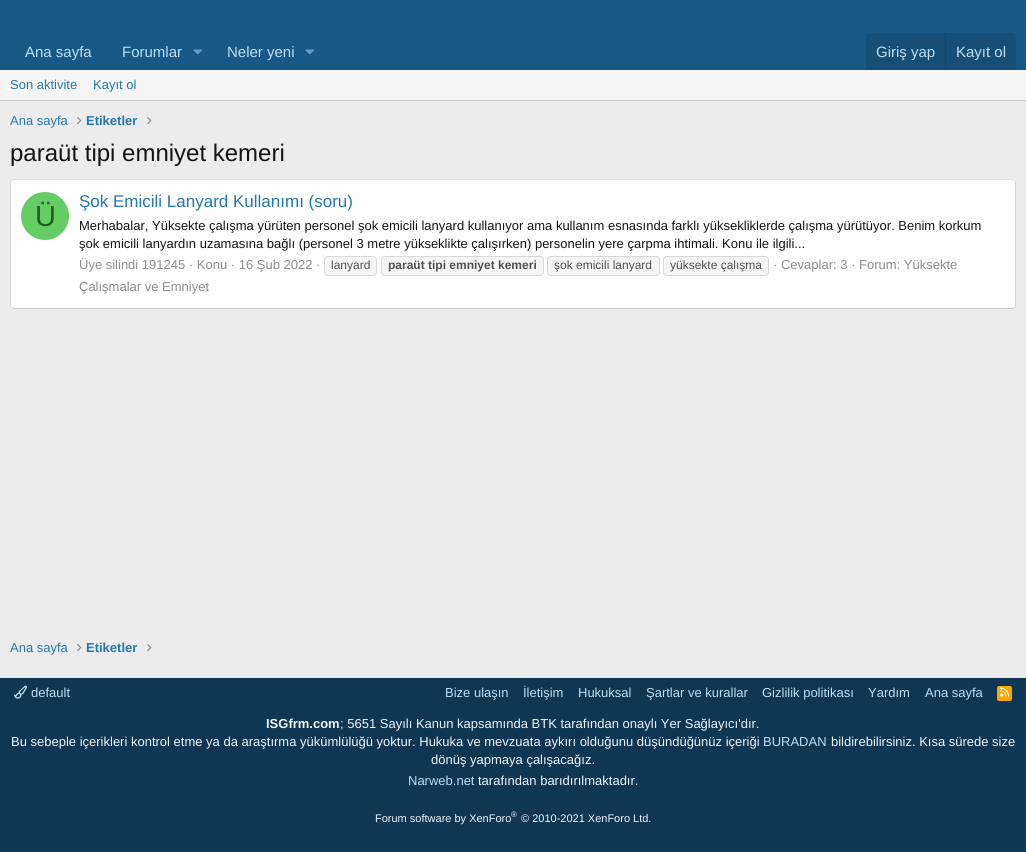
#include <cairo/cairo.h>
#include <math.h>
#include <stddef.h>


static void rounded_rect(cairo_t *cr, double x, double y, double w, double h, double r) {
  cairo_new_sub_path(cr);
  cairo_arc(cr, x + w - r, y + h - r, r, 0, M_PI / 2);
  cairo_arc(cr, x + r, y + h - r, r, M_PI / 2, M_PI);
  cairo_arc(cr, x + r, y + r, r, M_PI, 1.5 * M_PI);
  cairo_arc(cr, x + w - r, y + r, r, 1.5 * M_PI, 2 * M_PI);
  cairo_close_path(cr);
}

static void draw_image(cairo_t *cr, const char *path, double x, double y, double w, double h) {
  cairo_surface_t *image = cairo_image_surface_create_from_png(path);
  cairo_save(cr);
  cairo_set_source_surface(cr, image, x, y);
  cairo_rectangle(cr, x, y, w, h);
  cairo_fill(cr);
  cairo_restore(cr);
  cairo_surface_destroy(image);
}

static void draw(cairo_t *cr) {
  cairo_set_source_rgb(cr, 236 / 255.0, 236 / 255.0, 236 / 255.0);
  cairo_paint(cr);
  cairo_set_source_rgb(cr, 24 / 255.0, 88 / 255.0, 134 / 255.0);
  cairo_rectangle(cr, 0, 0, 1026, 70);
  cairo_fill(cr);
  draw_image(cr, "images/1.png", 193, 49, 9, 6);
  draw_image(cr, "images/1.png", 305, 49, 9, 6);
  cairo_set_source_rgb(cr, 23 / 255.0, 78 / 255.0, 117 / 255.0);
  cairo_new_path(cr);
  cairo_move_to(cr, 870, 33);
  cairo_line_to(cr, 1012, 33);
  cairo_curve_to(cr, 1014, 33, 1016, 35, 1016, 37);
  cairo_line_to(cr, 1016, 70);
  cairo_line_to(cr, 866, 70);
  cairo_line_to(cr, 866, 37);
  cairo_curve_to(cr, 866, 35, 868, 33, 870, 33);
  cairo_close_path(cr);
  cairo_fill(cr);
  cairo_set_source_rgb(cr, 23 / 255.0, 69 / 255.0, 102 / 255.0);
  cairo_rectangle(cr, 945, 33, 1, 37);
  cairo_fill(cr);
  cairo_set_source_rgb(cr, 245 / 255.0, 245 / 255.0, 245 / 255.0);
  cairo_rectangle(cr, 0, 70, 1026, 30);
  cairo_fill(cr);
  cairo_set_source_rgb(cr, 203 / 255.0, 203 / 255.0, 203 / 255.0);
  cairo_rectangle(cr, 0, 100, 1026, 1);
  cairo_fill(cr);
  draw_image(cr, "images/2.png", 77, 117, 5, 8);
  draw_image(cr, "images/2.png", 147, 117, 5, 8);
  cairo_set_source_rgb(cr, 254 / 255.0, 254 / 255.0, 254 / 255.0);
  rounded_rect(cr, 10, 179, 1006, 130, 4);
  cairo_fill(cr);
  cairo_new_path(cr);
  cairo_move_to(cr, 11.5, 180.5);
  cairo_line_to(cr, 14, 179.5);
  cairo_line_to(cr, 1012, 179.5);
  cairo_line_to(cr, 1014.5, 180.5);
  cairo_set_source_rgb(cr, 223 / 255.0, 223 / 255.0, 223 / 255.0);
  cairo_set_line_width(cr, 1);
  cairo_stroke(cr);
  cairo_new_path(cr);
  cairo_move_to(cr, 1014.5, 180.5);
  cairo_curve_to(cr, 1015, 181, 1015.5, 182, 1015.5, 183);
  cairo_line_to(cr, 1015.5, 305);
  cairo_curve_to(cr, 1015.5, 306, 1015, 307, 1014.5, 307.5);
  cairo_set_source_rgb(cr, 216 / 255.0, 216 / 255.0, 216 / 255.0);
  cairo_stroke(cr);
  cairo_new_path(cr);
  cairo_move_to(cr, 1014.5, 307.5);
  cairo_line_to(cr, 1012, 308.5);
  cairo_line_to(cr, 14, 308.5);
  cairo_line_to(cr, 11.5, 307.5);
  cairo_set_source_rgb(cr, 203 / 255.0, 203 / 255.0, 203 / 255.0);
  cairo_stroke(cr);
  cairo_new_path(cr);
  cairo_move_to(cr, 11.5, 307.5);
  cairo_curve_to(cr, 11, 307, 10.5, 306, 10.5, 305);
  cairo_line_to(cr, 10.5, 183);
  cairo_curve_to(cr, 10.5, 182, 11, 181, 11.5, 180.5);
  cairo_set_source_rgb(cr, 216 / 255.0, 216 / 255.0, 216 / 255.0);
  cairo_stroke(cr);
  cairo_set_source_rgb(cr, 102 / 255.0, 204 / 255.0, 102 / 255.0);
  cairo_arc(cr, 45, 216, 24, 0, 2 * M_PI);
  cairo_fill(cr);
  cairo_set_source_rgb(cr, 245 / 255.0, 245 / 255.0, 245 / 255.0);
  rounded_rect(cr, 324.5, 256.5, 52, 19, 3.5);
  cairo_fill_preserve(cr);
  cairo_set_source_rgb(cr, 216 / 255.0, 216 / 255.0, 216 / 255.0);
  cairo_stroke(cr);
  cairo_set_source_rgb(cr, 245 / 255.0, 245 / 255.0, 245 / 255.0);
  rounded_rect(cr, 381.5, 256.5, 162, 19, 3.5);
  cairo_fill_preserve(cr);
  cairo_set_source_rgb(cr, 216 / 255.0, 216 / 255.0, 216 / 255.0);
  cairo_stroke(cr);
  cairo_set_source_rgb(cr, 245 / 255.0, 245 / 255.0, 245 / 255.0);
  rounded_rect(cr, 547.5, 256.5, 112, 19, 3.5);
  cairo_fill_preserve(cr);
  cairo_set_source_rgb(cr, 216 / 255.0, 216 / 255.0, 216 / 255.0);
  cairo_stroke(cr);
  cairo_set_source_rgb(cr, 245 / 255.0, 245 / 255.0, 245 / 255.0);
  rounded_rect(cr, 663.5, 256.5, 105, 19, 3.5);
  cairo_fill_preserve(cr);
  cairo_set_source_rgb(cr, 216 / 255.0, 216 / 255.0, 216 / 255.0);
  cairo_stroke(cr);
  draw_image(cr, "images/2.png", 77, 644, 5, 8);
  draw_image(cr, "images/2.png", 147, 644, 5, 8);
  cairo_set_source_rgb(cr, 15 / 255.0, 54 / 255.0, 82 / 255.0);
  cairo_rectangle(cr, 0, 678, 1026, 174);
  cairo_fill(cr);
  draw_image(cr, "images/3.png", 14, 685, 13, 14);
  cairo_set_source_rgb(cr, 1, 165 / 255.0, 0);
  rounded_rect(cr, 997, 686, 15, 15, 2);
  cairo_fill(cr);
  draw_image(cr, "images/4.png", 1000, 687, 10, 10);
  cairo_select_font_face(cr, "Liberation Sans", CAIRO_FONT_SLANT_NORMAL, CAIRO_FONT_WEIGHT_NORMAL);
  cairo_set_font_size(cr, 15);
  cairo_set_source_rgb(cr, 188 / 255.0, 222 / 255.0, 245 / 255.0);
  cairo_move_to(cr, 25, 57);
  cairo_show_text(cr, "Ana sayfa");
  cairo_move_to(cr, 122, 57);
  cairo_show_text(cr, "Forumlar");
  cairo_move_to(cr, 227, 57);
  cairo_show_text(cr, "Neler yeni");
  cairo_move_to(cr, 876, 57);
  cairo_show_text(cr, "Giriş yap");
  cairo_move_to(cr, 956, 57);
  cairo_show_text(cr, "Kayıt ol");
  cairo_set_font_size(cr, 13);
  cairo_set_source_rgb(cr, 37 / 255.0, 119 / 255.0, 177 / 255.0);
  cairo_move_to(cr, 10, 89);
  cairo_show_text(cr, "Son aktivite");
  cairo_move_to(cr, 93, 89);
  cairo_show_text(cr, "Kayıt ol");
  cairo_move_to(cr, 10, 125);
  cairo_show_text(cr, "Ana sayfa");
  cairo_select_font_face(cr, "Liberation Sans", CAIRO_FONT_SLANT_NORMAL, CAIRO_FONT_WEIGHT_BOLD);
  cairo_move_to(cr, 86, 125);
  cairo_show_text(cr, "Etiketler");
  cairo_select_font_face(cr, "Liberation Sans", CAIRO_FONT_SLANT_NORMAL, CAIRO_FONT_WEIGHT_NORMAL);
  cairo_set_font_size(cr, 24);
  cairo_set_source_rgb(cr, 20 / 255.0, 20 / 255.0, 20 / 255.0);
  cairo_move_to(cr, 10, 161);
  cairo_show_text(cr, "paraüt tipi emniyet kemeri");
  cairo_set_font_size(cr, 29);
  cairo_set_source_rgb(cr, 32 / 255.0, 96 / 255.0, 32 / 255.0);
  cairo_move_to(cr, 35, 226);
  cairo_show_text(cr, "Ü");
  cairo_set_font_size(cr, 17);
  cairo_set_source_rgb(cr, 37 / 255.0, 119 / 255.0, 177 / 255.0);
  cairo_move_to(cr, 79, 207);
  cairo_show_text(cr, "Şok Emicili Lanyard Kullanımı (soru)");
  cairo_set_font_size(cr, 13);
  cairo_set_source_rgb(cr, 20 / 255.0, 20 / 255.0, 20 / 255.0);
  cairo_move_to(cr, 79, 230);
  cairo_show_text(cr, "Merhabalar, Yüksekte çalışma yürüten personel şok emicili lanyard kullanıyor ama kullanım esnasında farklı yüksekliklerde çalışma yürütüyor. Benim korkum");
  cairo_move_to(cr, 79, 248);
  cairo_show_text(cr, "şok emicili lanyardın uzamasına bağlı (personel 3 metre yükseklikte çalışırken) personelin yere çarpma ihtimali. Konu ile ilgili...");
  cairo_set_source_rgb(cr, 140 / 255.0, 140 / 255.0, 140 / 255.0);
  cairo_move_to(cr, 79, 269);
  cairo_show_text(cr, "Üye silindi 191245 · Konu · 16 Şub 2022 ·");
  cairo_set_font_size(cr, 12);
  cairo_set_source_rgb(cr, 80 / 255.0, 80 / 255.0, 80 / 255.0);
  cairo_move_to(cr, 331, 269);
  cairo_show_text(cr, "lanyard");
  cairo_select_font_face(cr, "Liberation Sans", CAIRO_FONT_SLANT_NORMAL, CAIRO_FONT_WEIGHT_BOLD);
  cairo_move_to(cr, 388, 269);
  cairo_show_text(cr, "paraüt tipi emniyet kemeri");
  cairo_select_font_face(cr, "Liberation Sans", CAIRO_FONT_SLANT_NORMAL, CAIRO_FONT_WEIGHT_NORMAL);
  cairo_move_to(cr, 554, 269);
  cairo_show_text(cr, "şok emicili lanyard");
  cairo_move_to(cr, 670, 269);
  cairo_show_text(cr, "yüksekte çalışma");
  cairo_set_font_size(cr, 13);
  cairo_set_source_rgb(cr, 140 / 255.0, 140 / 255.0, 140 / 255.0);
  cairo_move_to(cr, 773, 269);
  cairo_show_text(cr, "· Cevaplar: 3 · Forum: Yüksekte");
  cairo_move_to(cr, 79, 291);
  cairo_show_text(cr, "Çalışmalar ve Emniyet");
  cairo_set_source_rgb(cr, 37 / 255.0, 119 / 255.0, 177 / 255.0);
  cairo_move_to(cr, 10, 652);
  cairo_show_text(cr, "Ana sayfa");
  cairo_select_font_face(cr, "Liberation Sans", CAIRO_FONT_SLANT_NORMAL, CAIRO_FONT_WEIGHT_BOLD);
  cairo_move_to(cr, 86, 652);
  cairo_show_text(cr, "Etiketler");
  cairo_select_font_face(cr, "Liberation Sans", CAIRO_FONT_SLANT_NORMAL, CAIRO_FONT_WEIGHT_NORMAL);
  cairo_set_source_rgb(cr, 188 / 255.0, 222 / 255.0, 245 / 255.0);
  cairo_move_to(cr, 31, 697);
  cairo_show_text(cr, "default");
  cairo_move_to(cr, 445, 697);
  cairo_show_text(cr, "Bize ulaşın");
  cairo_move_to(cr, 523, 697);
  cairo_show_text(cr, "İletişim");
  cairo_move_to(cr, 578, 697);
  cairo_show_text(cr, "Hukuksal");
  cairo_move_to(cr, 646, 697);
  cairo_show_text(cr, "Şartlar ve kurallar");
  cairo_move_to(cr, 762, 697);
  cairo_show_text(cr, "Gizlilik politikası");
  cairo_move_to(cr, 868, 697);
  cairo_show_text(cr, "Yardım");
  cairo_move_to(cr, 925, 697);
  cairo_show_text(cr, "Ana sayfa");
  cairo_select_font_face(cr, "Liberation Sans", CAIRO_FONT_SLANT_NORMAL, CAIRO_FONT_WEIGHT_BOLD);
  cairo_set_source_rgb(cr, 237 / 255.0, 246 / 255.0, 253 / 255.0);
  cairo_move_to(cr, 266, 728);
  cairo_show_text(cr, "ISGfrm.com");
  cairo_select_font_face(cr, "Liberation Sans", CAIRO_FONT_SLANT_NORMAL, CAIRO_FONT_WEIGHT_NORMAL);
  cairo_move_to(cr, 340, 728);
  cairo_show_text(cr, "; 5651 Sayılı Kanun kapsamında BTK tarafından onaylı Yer Sağlayıcı'dır.");
  cairo_move_to(cr, 11, 746);
  cairo_show_text(cr, "Bu sebeple içerikleri kontrol etme ya da araştırma yükümlülüğü yoktur. Hukuka ve mevzuata aykırı olduğunu düşündüğünüz içeriği");
  cairo_set_source_rgb(cr, 188 / 255.0, 222 / 255.0, 245 / 255.0);
  cairo_move_to(cr, 763, 746);
  cairo_show_text(cr, "BURADAN");
  cairo_set_source_rgb(cr, 237 / 255.0, 246 / 255.0, 253 / 255.0);
  cairo_move_to(cr, 831, 746);
  cairo_show_text(cr, "bildirebilirsiniz. Kısa sürede size");
  cairo_move_to(cr, 431, 764);
  cairo_show_text(cr, "dönüş yapmaya çalışacağız.");
  cairo_set_source_rgb(cr, 188 / 255.0, 222 / 255.0, 245 / 255.0);
  cairo_move_to(cr, 408, 785);
  cairo_show_text(cr, "Narweb.net");
  cairo_set_source_rgb(cr, 237 / 255.0, 246 / 255.0, 253 / 255.0);
  cairo_move_to(cr, 478, 785);
  cairo_show_text(cr, "tarafından barıdırılmaktadır.");
  cairo_set_font_size(cr, 11);
  cairo_move_to(cr, 375, 822);
  cairo_show_text(cr, "Forum software by XenForo");
  cairo_set_font_size(cr, 8);
  cairo_move_to(cr, 511, 817);
  cairo_show_text(cr, "®");
  cairo_set_font_size(cr, 11);
  cairo_move_to(cr, 521, 822);
  cairo_show_text(cr, "© 2010-2021 XenForo Ltd.");
}

int main(void) {
  cairo_surface_t *surface = cairo_image_surface_create(CAIRO_FORMAT_RGB24, 1026, 852);
  cairo_t *cr = cairo_create(surface);
  cairo_font_options_t *options = cairo_font_options_create();
  cairo_font_options_set_hint_metrics(options, CAIRO_HINT_METRICS_OFF);
  cairo_font_options_set_hint_style(options, CAIRO_HINT_STYLE_NONE);
  cairo_set_font_options(cr, options);
  cairo_set_miter_limit(cr, 4);
  draw(cr);
  cairo_surface_write_to_png(surface, "out.png");
  cairo_font_options_destroy(options);
  cairo_destroy(cr);
  cairo_surface_destroy(surface);
  return 0;
}
